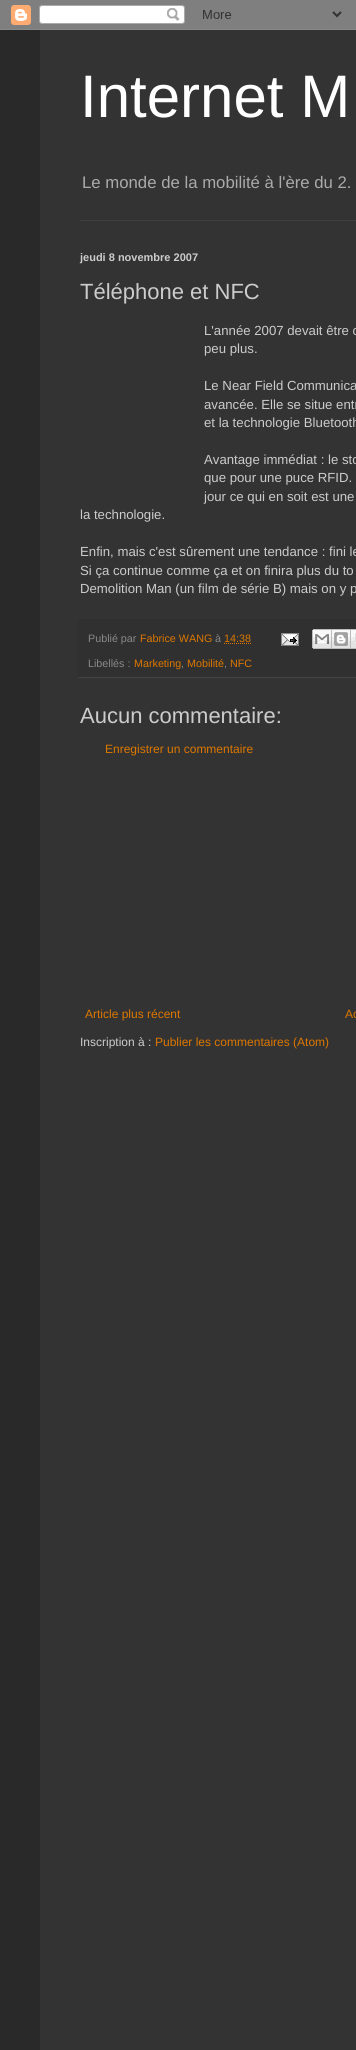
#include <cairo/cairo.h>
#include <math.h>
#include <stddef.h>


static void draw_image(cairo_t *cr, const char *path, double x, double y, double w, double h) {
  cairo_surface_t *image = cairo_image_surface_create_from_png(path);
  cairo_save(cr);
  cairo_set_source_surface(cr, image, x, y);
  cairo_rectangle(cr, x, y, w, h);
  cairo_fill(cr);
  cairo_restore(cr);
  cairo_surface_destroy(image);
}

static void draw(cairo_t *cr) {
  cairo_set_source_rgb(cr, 41 / 255.0, 41 / 255.0, 41 / 255.0);
  cairo_paint(cr);
  draw_image(cr, "images/1.png", 0, 0, 356, 30);
  cairo_set_source_rgb(cr, 51 / 255.0, 51 / 255.0, 51 / 255.0);
  cairo_rectangle(cr, 40, 30, 316, 2020);
  cairo_fill(cr);
  cairo_set_source_rgb(cr, 64 / 255.0, 64 / 255.0, 64 / 255.0);
  cairo_rectangle(cr, 80, 220, 276, 1);
  cairo_fill(cr);
  cairo_set_source_rgb(cr, 48 / 255.0, 48 / 255.0, 48 / 255.0);
  cairo_rectangle(cr, 78, 619, 278, 58);
  cairo_fill(cr);
  cairo_set_source_rgb(cr, 68 / 255.0, 68 / 255.0, 68 / 255.0);
  cairo_rectangle(cr, 78, 677, 278, 1);
  cairo_fill(cr);
  cairo_new_path(cr);
  cairo_move_to(cr, 224, 643.5);
  cairo_line_to(cr, 251.5, 643.5);
  cairo_set_source_rgb(cr, 221 / 255.0, 119 / 255.0, 0);
  cairo_set_line_width(cr, 1);
  cairo_set_dash(cr, (double[]){1, 1}, 2, 0);
  cairo_stroke(cr);
  draw_image(cr, "images/2.png", 281, 633, 18, 13);
  draw_image(cr, "images/3.png", 312, 629, 20, 20);
  draw_image(cr, "images/4.png", 332, 629, 19, 20);
  draw_image(cr, "images/5.png", 351, 629, 5, 20);
  cairo_select_font_face(cr, "Liberation Sans", CAIRO_FONT_SLANT_NORMAL, CAIRO_FONT_WEIGHT_NORMAL);
  cairo_set_font_size(cr, 60);
  cairo_set_source_rgb(cr, 1, 1, 1);
  cairo_move_to(cr, 80, 117);
  cairo_show_text(cr, "Internet M");
  cairo_set_font_size(cr, 16.75);
  cairo_set_source_rgb(cr, 170 / 255.0, 170 / 255.0, 170 / 255.0);
  cairo_move_to(cr, 82, 188);
  cairo_show_text(cr, "Le monde de la mobilité à l'ère du 2.");
  cairo_select_font_face(cr, "Liberation Sans", CAIRO_FONT_SLANT_NORMAL, CAIRO_FONT_WEIGHT_BOLD);
  cairo_set_font_size(cr, 11);
  cairo_set_source_rgb(cr, 204 / 255.0, 204 / 255.0, 204 / 255.0);
  cairo_move_to(cr, 80, 261);
  cairo_show_text(cr, "jeudi 8 novembre 2007");
  cairo_select_font_face(cr, "Liberation Sans", CAIRO_FONT_SLANT_NORMAL, CAIRO_FONT_WEIGHT_NORMAL);
  cairo_set_font_size(cr, 22);
  cairo_move_to(cr, 80, 299);
  cairo_show_text(cr, "Téléphone et NFC");
  cairo_set_font_size(cr, 13.2);
  cairo_move_to(cr, 204, 335);
  cairo_show_text(cr, "L'année 2007 devait être c");
  cairo_move_to(cr, 204, 353);
  cairo_show_text(cr, "peu plus.");
  cairo_move_to(cr, 204, 390);
  cairo_show_text(cr, "Le Near Field Communica");
  cairo_move_to(cr, 204, 409);
  cairo_show_text(cr, "avancée. Elle se situe entr");
  cairo_move_to(cr, 204, 427);
  cairo_show_text(cr, "et la technologie Bluetooth");
  cairo_move_to(cr, 204, 464);
  cairo_show_text(cr, "Avantage immédiat : le sto");
  cairo_move_to(cr, 204, 482);
  cairo_show_text(cr, "que pour une puce RFID.");
  cairo_move_to(cr, 204, 501);
  cairo_show_text(cr, "jour ce qui en soit est une");
  cairo_move_to(cr, 80, 519);
  cairo_show_text(cr, "la technologie.");
  cairo_move_to(cr, 80, 556);
  cairo_show_text(cr, "Enfin, mais c'est sûrement une tendance : fini le");
  cairo_move_to(cr, 80, 575);
  cairo_show_text(cr, "Si ça continue comme ça et on finira plus du to");
  cairo_move_to(cr, 80, 593);
  cairo_show_text(cr, "Demolition Man (un film de série B) mais on y p");
  cairo_set_font_size(cr, 10.75);
  cairo_set_source_rgb(cr, 136 / 255.0, 136 / 255.0, 136 / 255.0);
  cairo_move_to(cr, 88, 642);
  cairo_show_text(cr, "Publié par");
  cairo_set_source_rgb(cr, 221 / 255.0, 119 / 255.0, 0);
  cairo_move_to(cr, 140, 642);
  cairo_show_text(cr, "Fabrice WANG");
  cairo_set_source_rgb(cr, 136 / 255.0, 136 / 255.0, 136 / 255.0);
  cairo_move_to(cr, 215, 642);
  cairo_show_text(cr, "à");
  cairo_set_source_rgb(cr, 221 / 255.0, 119 / 255.0, 0);
  cairo_move_to(cr, 224, 642);
  cairo_show_text(cr, "14:38");
  cairo_set_source_rgb(cr, 136 / 255.0, 136 / 255.0, 136 / 255.0);
  cairo_move_to(cr, 88, 667);
  cairo_show_text(cr, "Libellés :");
  cairo_set_source_rgb(cr, 221 / 255.0, 119 / 255.0, 0);
  cairo_move_to(cr, 134, 667);
  cairo_show_text(cr, "Marketing");
  cairo_set_source_rgb(cr, 136 / 255.0, 136 / 255.0, 136 / 255.0);
  cairo_move_to(cr, 181, 667);
  cairo_show_text(cr, ",");
  cairo_set_source_rgb(cr, 221 / 255.0, 119 / 255.0, 0);
  cairo_move_to(cr, 187, 667);
  cairo_show_text(cr, "Mobilité");
  cairo_set_source_rgb(cr, 136 / 255.0, 136 / 255.0, 136 / 255.0);
  cairo_move_to(cr, 224, 667);
  cairo_show_text(cr, ",");
  cairo_set_source_rgb(cr, 221 / 255.0, 119 / 255.0, 0);
  cairo_move_to(cr, 230, 667);
  cairo_show_text(cr, "NFC");
  cairo_set_font_size(cr, 22);
  cairo_set_source_rgb(cr, 204 / 255.0, 204 / 255.0, 204 / 255.0);
  cairo_move_to(cr, 80, 723);
  cairo_show_text(cr, "Aucun commentaire:");
  cairo_set_font_size(cr, 12);
  cairo_set_source_rgb(cr, 221 / 255.0, 119 / 255.0, 0);
  cairo_move_to(cr, 105, 753);
  cairo_show_text(cr, "Enregistrer un commentaire");
  cairo_move_to(cr, 85, 1018);
  cairo_show_text(cr, "Article plus récent");
  cairo_move_to(cr, 345, 1018);
  cairo_show_text(cr, "Ac");
  cairo_set_source_rgb(cr, 204 / 255.0, 204 / 255.0, 204 / 255.0);
  cairo_move_to(cr, 80, 1046);
  cairo_show_text(cr, "Inscription à :");
  cairo_set_source_rgb(cr, 221 / 255.0, 119 / 255.0, 0);
  cairo_move_to(cr, 155, 1046);
  cairo_show_text(cr, "Publier les commentaires (Atom)");
}

int main(void) {
  cairo_surface_t *surface = cairo_image_surface_create(CAIRO_FORMAT_RGB24, 356, 2050);
  cairo_t *cr = cairo_create(surface);
  cairo_font_options_t *options = cairo_font_options_create();
  cairo_font_options_set_hint_metrics(options, CAIRO_HINT_METRICS_OFF);
  cairo_font_options_set_hint_style(options, CAIRO_HINT_STYLE_NONE);
  cairo_set_font_options(cr, options);
  cairo_set_miter_limit(cr, 4);
  draw(cr);
  cairo_surface_write_to_png(surface, "out.png");
  cairo_font_options_destroy(options);
  cairo_destroy(cr);
  cairo_surface_destroy(surface);
  return 0;
}
